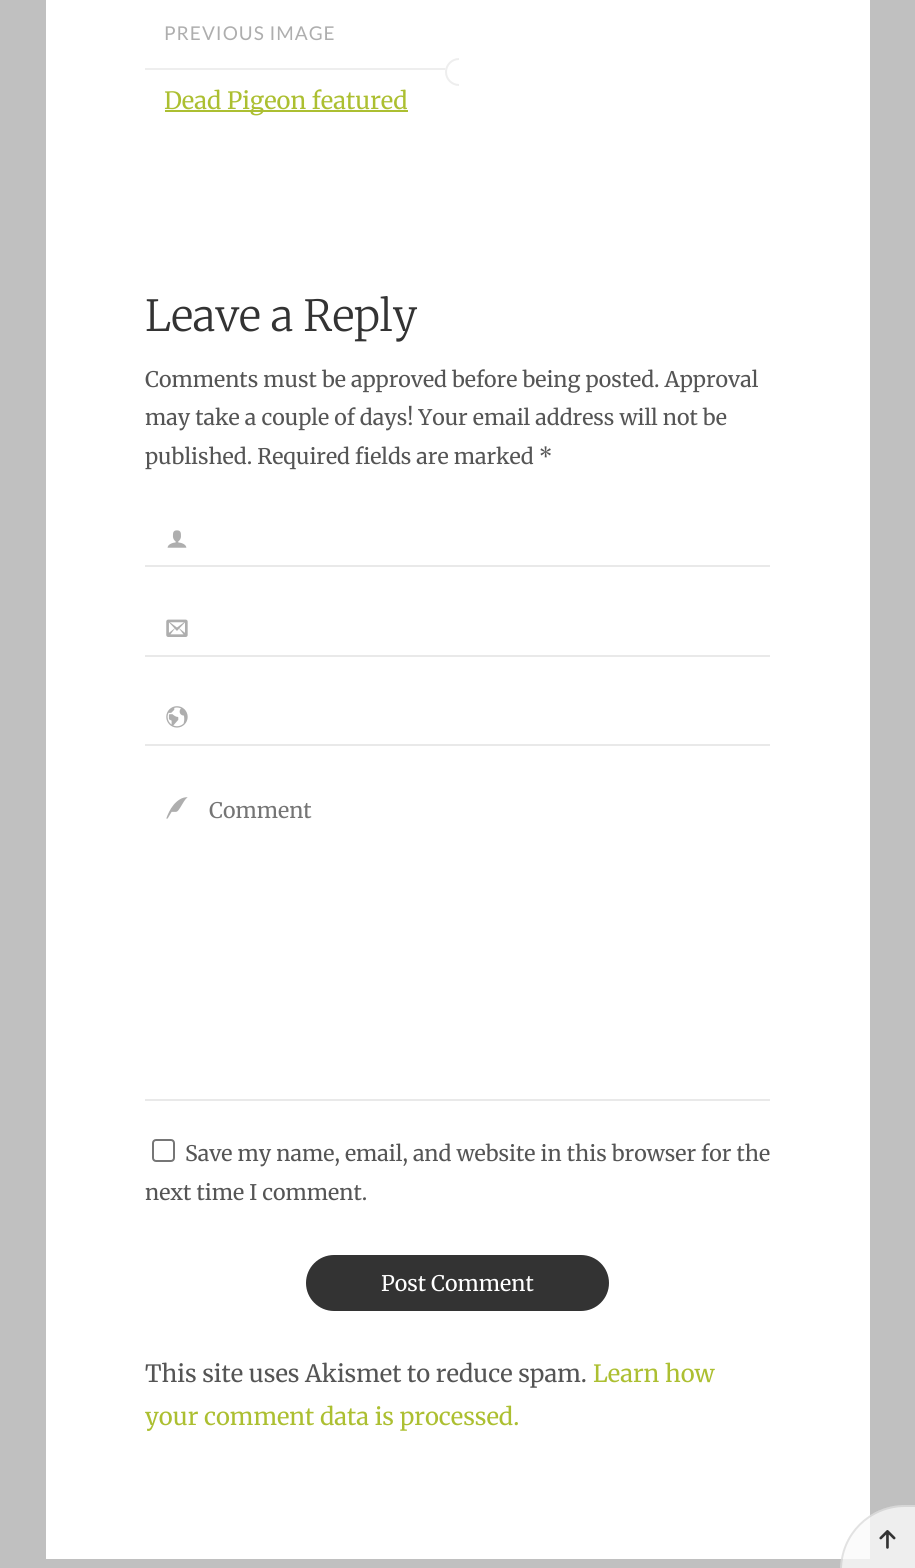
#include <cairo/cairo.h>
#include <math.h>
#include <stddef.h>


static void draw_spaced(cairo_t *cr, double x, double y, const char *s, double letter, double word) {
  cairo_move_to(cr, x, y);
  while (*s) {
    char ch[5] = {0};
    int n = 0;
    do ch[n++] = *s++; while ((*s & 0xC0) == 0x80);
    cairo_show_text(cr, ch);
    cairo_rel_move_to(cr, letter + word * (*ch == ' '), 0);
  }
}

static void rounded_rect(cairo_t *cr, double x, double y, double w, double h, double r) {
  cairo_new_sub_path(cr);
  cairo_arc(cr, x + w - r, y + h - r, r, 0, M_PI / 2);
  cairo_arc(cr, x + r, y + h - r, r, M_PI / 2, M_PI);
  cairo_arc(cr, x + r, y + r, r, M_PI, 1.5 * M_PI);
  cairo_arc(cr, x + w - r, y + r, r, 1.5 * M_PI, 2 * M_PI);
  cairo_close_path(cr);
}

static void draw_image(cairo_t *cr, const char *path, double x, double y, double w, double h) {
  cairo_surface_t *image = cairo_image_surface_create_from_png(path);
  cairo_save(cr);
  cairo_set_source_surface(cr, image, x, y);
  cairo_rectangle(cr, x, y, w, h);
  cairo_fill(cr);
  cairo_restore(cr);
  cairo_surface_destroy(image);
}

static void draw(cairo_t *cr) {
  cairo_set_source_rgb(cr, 192 / 255.0, 192 / 255.0, 192 / 255.0);
  cairo_paint(cr);
  cairo_set_source_rgb(cr, 1, 1, 1);
  cairo_rectangle(cr, 46, 0, 824, 1559);
  cairo_fill(cr);
  cairo_set_source_rgb(cr, 238 / 255.0, 238 / 255.0, 238 / 255.0);
  cairo_rectangle(cr, 145, 68, 301, 2);
  cairo_fill(cr);
  cairo_set_source_rgb(cr, 1, 1, 1);
  cairo_new_path(cr);
  cairo_move_to(cr, 459, 58);
  cairo_line_to(cr, 459, 86);
  cairo_curve_to(cr, 451.5, 86, 445, 79.5, 445, 72);
  cairo_curve_to(cr, 445, 64.5, 451.5, 58, 459, 58);
  cairo_close_path(cr);
  cairo_fill(cr);
  cairo_save(cr);
  cairo_rectangle(cr, 145, 16, 314, 121);
  cairo_clip(cr);
  cairo_arc(cr, 459, 72, 13, 0, 2 * M_PI);
  cairo_set_source_rgb(cr, 238 / 255.0, 238 / 255.0, 238 / 255.0);
  cairo_stroke(cr);
  cairo_restore(cr);
  cairo_set_source_rgb(cr, 172 / 255.0, 191 / 255.0, 49 / 255.0);
  cairo_rectangle(cr, 165, 110, 243, 2);
  cairo_fill(cr);
  draw_image(cr, "images/1.png", 167, 530, 20, 18);
  cairo_set_source_rgb(cr, 233 / 255.0, 233 / 255.0, 233 / 255.0);
  cairo_rectangle(cr, 145, 565, 625, 2);
  cairo_fill(cr);
  draw_image(cr, "images/2.png", 166, 619, 22, 18);
  cairo_rectangle(cr, 145, 655, 625, 2);
  cairo_fill(cr);
  draw_image(cr, "images/3.png", 166, 706, 22, 22);
  cairo_rectangle(cr, 145, 744, 625, 2);
  cairo_fill(cr);
  draw_image(cr, "images/4.png", 166, 797, 22, 22);
  cairo_rectangle(cr, 145, 1099, 625, 2);
  cairo_fill(cr);
  rounded_rect(cr, 153, 1140, 21, 21, 3);
  cairo_set_source_rgb(cr, 118 / 255.0, 118 / 255.0, 118 / 255.0);
  cairo_stroke(cr);
  cairo_set_source_rgb(cr, 51 / 255.0, 51 / 255.0, 51 / 255.0);
  rounded_rect(cr, 306, 1255, 303, 56, 28);
  cairo_fill(cr);
  cairo_set_source_rgba(cr, 250 / 255.0, 250 / 255.0, 250 / 255.0, 0.8);
  cairo_new_path(cr);
  cairo_move_to(cr, 905, 1505);
  cairo_line_to(cr, 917, 1505);
  cairo_line_to(cr, 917, 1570);
  cairo_line_to(cr, 840, 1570);
  cairo_curve_to(cr, 840, 1534, 869, 1505, 905, 1505);
  cairo_close_path(cr);
  cairo_fill(cr);
  cairo_new_path(cr);
  cairo_move_to(cr, 905, 1506);
  cairo_line_to(cr, 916, 1506);
  cairo_line_to(cr, 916, 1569);
  cairo_line_to(cr, 841, 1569);
  cairo_line_to(cr, 841, 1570);
  cairo_curve_to(cr, 841, 1534.5, 869.5, 1506, 905, 1506);
  cairo_close_path(cr);
  cairo_set_source_rgba(cr, 0, 0, 0, 0.1);
  cairo_stroke(cr);
  draw_image(cr, "images/5.png", 879, 1530, 17, 19);
  cairo_select_font_face(cr, "Lato", CAIRO_FONT_SLANT_NORMAL, CAIRO_FONT_WEIGHT_NORMAL);
  cairo_set_font_size(cr, 19);
  cairo_set_source_rgb(cr, 174 / 255.0, 174 / 255.0, 174 / 255.0);
  draw_spaced(cr, 164, 40, "PREVIOUS IMAGE", 1, 0);
  cairo_select_font_face(cr, "Merriweather", CAIRO_FONT_SLANT_NORMAL, CAIRO_FONT_WEIGHT_NORMAL);
  cairo_set_font_size(cr, 23.75);
  cairo_set_source_rgb(cr, 172 / 255.0, 191 / 255.0, 49 / 255.0);
  cairo_move_to(cr, 164, 109);
  cairo_show_text(cr, "Dead Pigeon featured");
  cairo_select_font_face(cr, "Merriweather Light", CAIRO_FONT_SLANT_NORMAL, CAIRO_FONT_WEIGHT_NORMAL);
  cairo_set_font_size(cr, 42.75);
  cairo_set_source_rgb(cr, 51 / 255.0, 51 / 255.0, 51 / 255.0);
  cairo_move_to(cr, 145, 331);
  cairo_show_text(cr, "Leave a Reply");
  cairo_select_font_face(cr, "Merriweather", CAIRO_FONT_SLANT_NORMAL, CAIRO_FONT_WEIGHT_NORMAL);
  cairo_set_font_size(cr, 21.4);
  cairo_set_source_rgb(cr, 85 / 255.0, 85 / 255.0, 85 / 255.0);
  cairo_move_to(cr, 145, 387);
  cairo_show_text(cr, "Comments must be approved before being posted. Approval");
  cairo_move_to(cr, 145, 425);
  cairo_show_text(cr, "may take a couple of days! Your email address will not be");
  cairo_move_to(cr, 145, 464);
  cairo_show_text(cr, "published. Required fields are marked *");
  cairo_set_source_rgb(cr, 117 / 255.0, 117 / 255.0, 117 / 255.0);
  cairo_move_to(cr, 209, 818);
  cairo_show_text(cr, "Comment");
  cairo_set_source_rgb(cr, 85 / 255.0, 85 / 255.0, 85 / 255.0);
  cairo_move_to(cr, 185, 1161);
  cairo_show_text(cr, "Save my name, email, and website in this browser for the");
  cairo_move_to(cr, 145, 1200);
  cairo_show_text(cr, "next time I comment.");
  cairo_set_source_rgb(cr, 1, 1, 1);
  cairo_move_to(cr, 381, 1291);
  cairo_show_text(cr, "Post Comment");
  cairo_set_font_size(cr, 23.75);
  cairo_set_source_rgb(cr, 85 / 255.0, 85 / 255.0, 85 / 255.0);
  cairo_move_to(cr, 145, 1382);
  cairo_show_text(cr, "This site uses Akismet to reduce spam.");
  cairo_set_source_rgb(cr, 172 / 255.0, 191 / 255.0, 49 / 255.0);
  cairo_move_to(cr, 593, 1382);
  cairo_show_text(cr, "Learn how");
  cairo_move_to(cr, 145, 1425);
  cairo_show_text(cr, "your comment data is processed.");
}

int main(void) {
  cairo_surface_t *surface = cairo_image_surface_create(CAIRO_FORMAT_RGB24, 915, 1568);
  cairo_t *cr = cairo_create(surface);
  cairo_font_options_t *options = cairo_font_options_create();
  cairo_font_options_set_hint_metrics(options, CAIRO_HINT_METRICS_OFF);
  cairo_font_options_set_hint_style(options, CAIRO_HINT_STYLE_NONE);
  cairo_set_font_options(cr, options);
  cairo_set_miter_limit(cr, 4);
  draw(cr);
  cairo_surface_write_to_png(surface, "out.png");
  cairo_font_options_destroy(options);
  cairo_destroy(cr);
  cairo_surface_destroy(surface);
  return 0;
}
